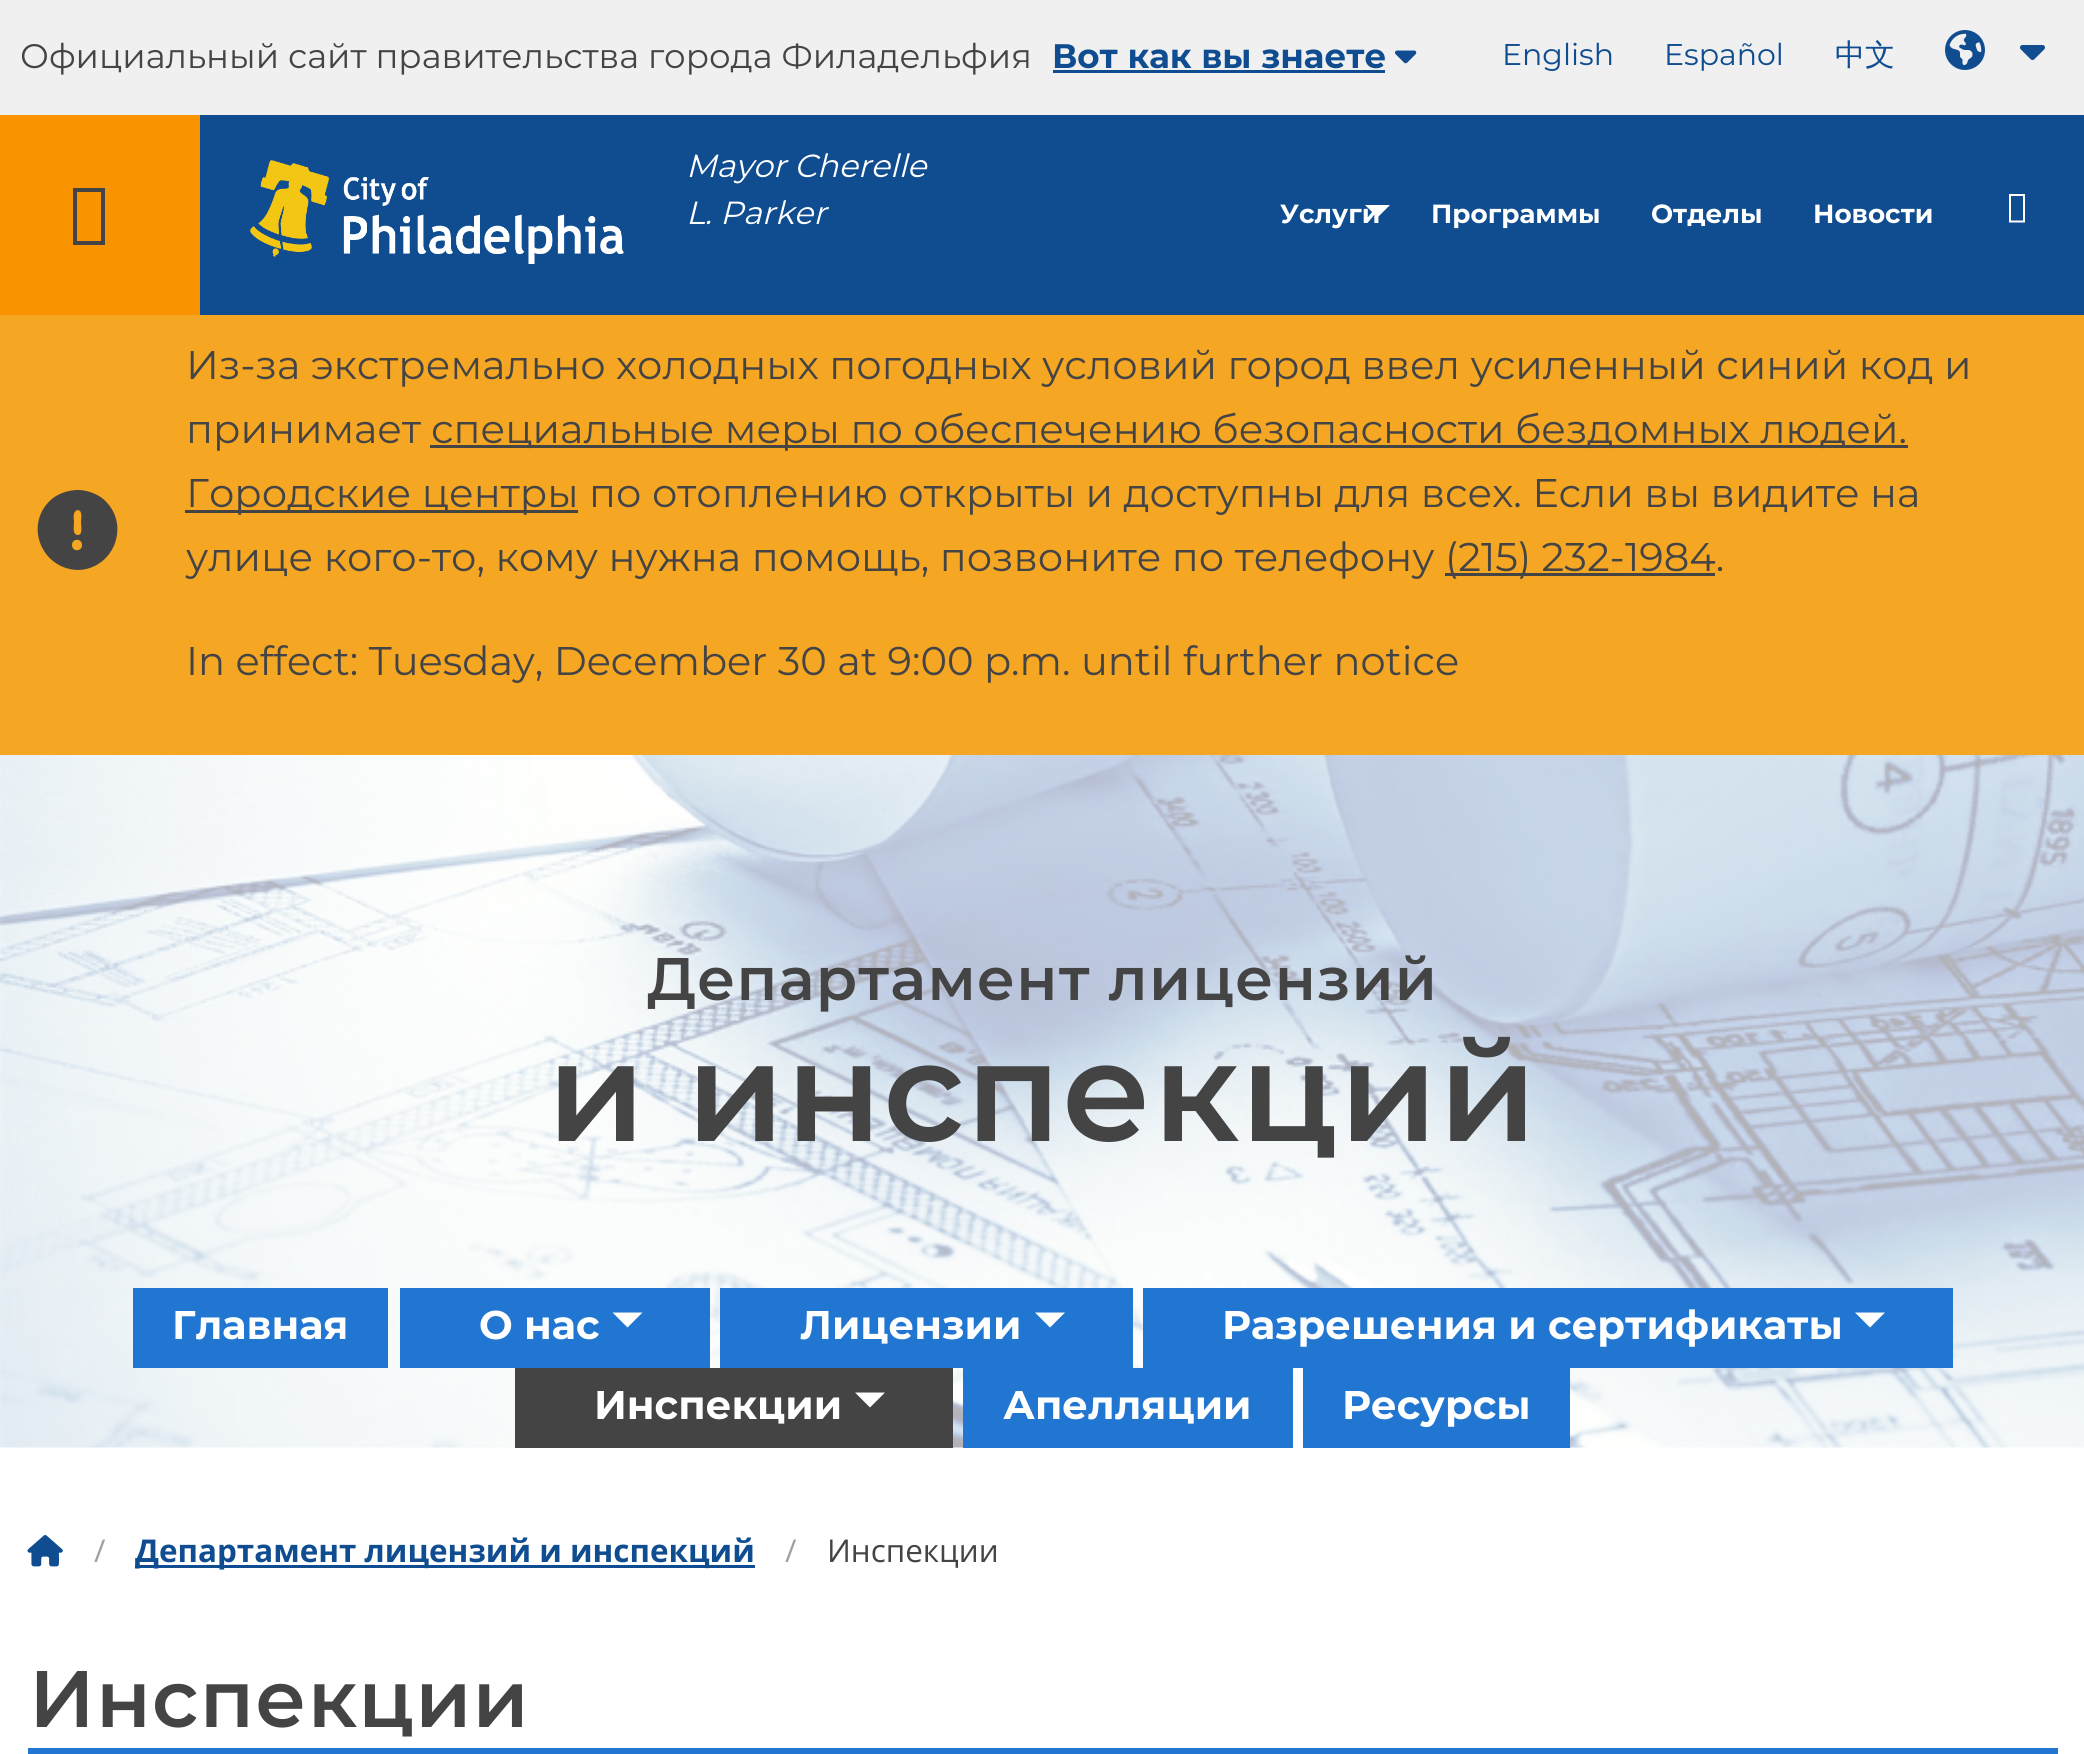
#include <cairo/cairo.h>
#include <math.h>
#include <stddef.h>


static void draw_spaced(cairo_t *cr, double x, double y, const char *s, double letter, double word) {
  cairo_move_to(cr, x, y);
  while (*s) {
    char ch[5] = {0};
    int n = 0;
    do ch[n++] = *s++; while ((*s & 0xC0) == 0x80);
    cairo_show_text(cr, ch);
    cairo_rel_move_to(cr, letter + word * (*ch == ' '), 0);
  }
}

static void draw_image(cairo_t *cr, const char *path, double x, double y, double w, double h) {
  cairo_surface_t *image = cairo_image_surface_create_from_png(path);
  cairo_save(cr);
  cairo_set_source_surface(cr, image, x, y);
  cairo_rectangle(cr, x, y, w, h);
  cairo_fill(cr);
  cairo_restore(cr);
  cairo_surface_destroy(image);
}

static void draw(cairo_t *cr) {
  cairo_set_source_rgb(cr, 1, 1, 1);
  cairo_paint(cr);
  cairo_set_source_rgb(cr, 15 / 255.0, 77 / 255.0, 144 / 255.0);
  cairo_rectangle(cr, 200, 115, 1884, 200);
  cairo_fill(cr);
  cairo_set_source_rgb(cr, 240 / 255.0, 240 / 255.0, 240 / 255.0);
  cairo_rectangle(cr, 0, 0, 2084, 115);
  cairo_fill(cr);
  cairo_set_source_rgb(cr, 15 / 255.0, 77 / 255.0, 144 / 255.0);
  cairo_rectangle(cr, 1053, 70, 332, 3);
  cairo_fill(cr);
  draw_image(cr, "images/1.png", 1395, 50, 22, 14);
  draw_image(cr, "images/2.png", 1945, 30, 40, 40);
  draw_image(cr, "images/3.png", 2020, 45, 25, 15);
  cairo_set_source_rgb(cr, 249 / 255.0, 147 / 255.0, 0);
  cairo_rectangle(cr, 0, 115, 200, 200);
  cairo_fill(cr);
  cairo_set_source_rgb(cr, 68 / 255.0, 68 / 255.0, 68 / 255.0);
  cairo_new_path(cr);
  cairo_move_to(cr, 73, 245);
  cairo_line_to(cr, 73, 188);
  cairo_line_to(cr, 105, 188);
  cairo_line_to(cr, 105, 245);
  cairo_close_path(cr);
  cairo_move_to(cr, 77, 241);
  cairo_line_to(cr, 101, 241);
  cairo_line_to(cr, 101, 192);
  cairo_line_to(cr, 77, 192);
  cairo_close_path(cr);
  cairo_fill(cr);
  draw_image(cr, "images/4.png", 250, 160, 374, 104);
  cairo_set_source_rgb(cr, 1, 1, 1);
  cairo_new_path(cr);
  cairo_move_to(cr, 1365, 205);
  cairo_line_to(cr, 1390, 205);
  cairo_line_to(cr, 1377.5, 217.5);
  cairo_close_path(cr);
  cairo_fill(cr);
  cairo_new_path(cr);
  cairo_move_to(cr, 2009, 222.5);
  cairo_line_to(cr, 2009, 194);
  cairo_line_to(cr, 2025, 194);
  cairo_line_to(cr, 2025, 222.5);
  cairo_close_path(cr);
  cairo_move_to(cr, 2011, 220.5);
  cairo_line_to(cr, 2023, 220.5);
  cairo_line_to(cr, 2023, 196);
  cairo_line_to(cr, 2011, 196);
  cairo_close_path(cr);
  cairo_fill(cr);
  cairo_set_source_rgb(cr, 245 / 255.0, 166 / 255.0, 35 / 255.0);
  cairo_rectangle(cr, 0, 315, 2084, 440);
  cairo_fill(cr);
  cairo_set_source_rgb(cr, 68 / 255.0, 68 / 255.0, 68 / 255.0);
  cairo_new_path(cr);
  cairo_move_to(cr, 78, 570);
  cairo_curve_to(cr, 115, 569, 132, 522, 102, 498);
  cairo_curve_to(cr, 95, 493, 86, 490, 78, 490);
  cairo_curve_to(cr, 69, 490, 60, 493, 53, 498);
  cairo_curve_to(cr, 23, 522, 40, 569, 78, 570);
  cairo_close_path(cr);
  cairo_move_to(cr, 78, 510);
  cairo_curve_to(cr, 83, 511, 81, 519, 81, 522);
  cairo_curve_to(cr, 81, 526, 83, 535, 78, 535);
  cairo_curve_to(cr, 72, 535, 74, 526, 74, 522);
  cairo_curve_to(cr, 74, 519, 72, 511, 78, 510);
  cairo_close_path(cr);
  cairo_move_to(cr, 72, 545);
  cairo_curve_to(cr, 72, 538, 82, 538, 82, 545);
  cairo_curve_to(cr, 82, 552, 72, 552, 72, 545);
  cairo_close_path(cr);
  cairo_fill(cr);
  cairo_rectangle(cr, 430, 445, 1478, 3);
  cairo_fill(cr);
  cairo_rectangle(cr, 185, 510, 393, 3);
  cairo_fill(cr);
  cairo_rectangle(cr, 1445, 573, 270, 3);
  cairo_fill(cr);
  draw_image(cr, "images/5.png", 0, 755, 2084, 693);
  cairo_set_source_rgb(cr, 33 / 255.0, 118 / 255.0, 210 / 255.0);
  cairo_rectangle(cr, 133, 1288, 255, 80);
  cairo_fill(cr);
  cairo_rectangle(cr, 400, 1288, 310, 80);
  cairo_fill(cr);
  cairo_set_source_rgb(cr, 1, 1, 1);
  cairo_new_path(cr);
  cairo_move_to(cr, 612.5, 1312.5);
  cairo_line_to(cr, 642.5, 1312.5);
  cairo_line_to(cr, 627.5, 1327.5);
  cairo_close_path(cr);
  cairo_fill(cr);
  cairo_set_source_rgb(cr, 33 / 255.0, 118 / 255.0, 210 / 255.0);
  cairo_rectangle(cr, 720, 1288, 413, 80);
  cairo_fill(cr);
  cairo_set_source_rgb(cr, 1, 1, 1);
  cairo_new_path(cr);
  cairo_move_to(cr, 1035, 1312.5);
  cairo_line_to(cr, 1065, 1312.5);
  cairo_line_to(cr, 1050, 1327.5);
  cairo_close_path(cr);
  cairo_fill(cr);
  cairo_set_source_rgb(cr, 33 / 255.0, 118 / 255.0, 210 / 255.0);
  cairo_rectangle(cr, 1143, 1288, 810, 80);
  cairo_fill(cr);
  cairo_set_source_rgb(cr, 1, 1, 1);
  cairo_new_path(cr);
  cairo_move_to(cr, 1855, 1312.5);
  cairo_line_to(cr, 1885, 1312.5);
  cairo_line_to(cr, 1870, 1327.5);
  cairo_close_path(cr);
  cairo_fill(cr);
  cairo_set_source_rgb(cr, 68 / 255.0, 68 / 255.0, 68 / 255.0);
  cairo_rectangle(cr, 515, 1368, 438, 80);
  cairo_fill(cr);
  cairo_set_source_rgb(cr, 1, 1, 1);
  cairo_new_path(cr);
  cairo_move_to(cr, 855, 1392.5);
  cairo_line_to(cr, 885, 1392.5);
  cairo_line_to(cr, 870, 1407.5);
  cairo_close_path(cr);
  cairo_fill(cr);
  cairo_set_source_rgb(cr, 33 / 255.0, 118 / 255.0, 210 / 255.0);
  cairo_rectangle(cr, 963, 1368, 330, 80);
  cairo_fill(cr);
  cairo_rectangle(cr, 1303, 1368, 267, 80);
  cairo_fill(cr);
  draw_image(cr, "images/6.png", 27, 1535, 36, 32);
  cairo_set_source_rgb(cr, 15 / 255.0, 77 / 255.0, 144 / 255.0);
  cairo_rectangle(cr, 135, 1565, 620, 3);
  cairo_fill(cr);
  cairo_set_source_rgb(cr, 33 / 255.0, 118 / 255.0, 210 / 255.0);
  cairo_rectangle(cr, 28, 1748, 2030, 6);
  cairo_fill(cr);
  cairo_select_font_face(cr, "Montserrat", CAIRO_FONT_SLANT_NORMAL, CAIRO_FONT_WEIGHT_NORMAL);
  cairo_set_font_size(cr, 34);
  cairo_set_source_rgb(cr, 68 / 255.0, 68 / 255.0, 68 / 255.0);
  cairo_move_to(cr, 20, 68);
  cairo_show_text(cr, "Официальный сайт правительства города Филадельфия");
  cairo_select_font_face(cr, "Montserrat", CAIRO_FONT_SLANT_NORMAL, CAIRO_FONT_WEIGHT_BOLD);
  cairo_set_source_rgb(cr, 15 / 255.0, 77 / 255.0, 144 / 255.0);
  cairo_move_to(cr, 1052, 68);
  cairo_show_text(cr, "Вот как вы знаете");
  cairo_select_font_face(cr, "Montserrat", CAIRO_FONT_SLANT_NORMAL, CAIRO_FONT_WEIGHT_NORMAL);
  cairo_set_font_size(cr, 30);
  cairo_move_to(cr, 1502, 65);
  cairo_show_text(cr, "English");
  cairo_move_to(cr, 1664, 65);
  cairo_show_text(cr, "Español");
  cairo_select_font_face(cr, "WenQuanYi Zen Hei Medium", CAIRO_FONT_SLANT_NORMAL, CAIRO_FONT_WEIGHT_NORMAL);
  cairo_move_to(cr, 1835, 65);
  cairo_show_text(cr, "中文");
  cairo_select_font_face(cr, "Montserrat", CAIRO_FONT_SLANT_ITALIC, CAIRO_FONT_WEIGHT_NORMAL);
  cairo_set_font_size(cr, 32);
  cairo_set_source_rgb(cr, 1, 1, 1);
  cairo_move_to(cr, 686, 177);
  cairo_show_text(cr, "Mayor Cherelle");
  cairo_move_to(cr, 686, 224);
  cairo_show_text(cr, "L. Parker");
  cairo_select_font_face(cr, "Montserrat", CAIRO_FONT_SLANT_NORMAL, CAIRO_FONT_WEIGHT_BOLD);
  cairo_set_font_size(cr, 26.25);
  cairo_move_to(cr, 1280, 223);
  cairo_show_text(cr, "Услуги");
  cairo_move_to(cr, 1431, 223);
  cairo_show_text(cr, "Программы");
  cairo_move_to(cr, 1651, 223);
  cairo_show_text(cr, "Отделы");
  cairo_move_to(cr, 1813, 223);
  cairo_show_text(cr, "Новости");
  cairo_select_font_face(cr, "Montserrat", CAIRO_FONT_SLANT_NORMAL, CAIRO_FONT_WEIGHT_NORMAL);
  cairo_set_font_size(cr, 40);
  cairo_set_source_rgb(cr, 68 / 255.0, 68 / 255.0, 68 / 255.0);
  cairo_move_to(cr, 186, 379);
  cairo_show_text(cr, "Из-за экстремально холодных погодных условий город ввел усиленный синий код и");
  cairo_move_to(cr, 186, 443);
  cairo_show_text(cr, "принимает");
  cairo_move_to(cr, 431, 443);
  cairo_show_text(cr, "специальные меры по обеспечению безопасности бездомных людей.");
  cairo_move_to(cr, 186, 507);
  cairo_show_text(cr, "Городские центры по отоплению открыты и доступны для всех. Если вы видите на");
  cairo_move_to(cr, 186, 571);
  cairo_show_text(cr, "улице кого-то, кому нужна помощь, позвоните по телефону");
  cairo_move_to(cr, 1445, 571);
  cairo_show_text(cr, "(215) 232-1984.");
  cairo_move_to(cr, 186, 675);
  cairo_show_text(cr, "In effect: Tuesday, December 30 at 9:00 p.m. until further notice");
  cairo_select_font_face(cr, "Montserrat Thin", CAIRO_FONT_SLANT_NORMAL, CAIRO_FONT_WEIGHT_NORMAL);
  cairo_set_font_size(cr, 60);
  draw_spaced(cr, 647, 1000, "Департамент лицензий", 1.2, 0);
  cairo_set_font_size(cr, 140);
  draw_spaced(cr, 547, 1141, "и инспекций", 1.2, 0);
  cairo_select_font_face(cr, "Montserrat", CAIRO_FONT_SLANT_NORMAL, CAIRO_FONT_WEIGHT_BOLD);
  cairo_set_font_size(cr, 40);
  cairo_set_source_rgb(cr, 1, 1, 1);
  cairo_move_to(cr, 172, 1339);
  cairo_show_text(cr, "Главная");
  cairo_move_to(cr, 479, 1339);
  cairo_show_text(cr, "О нас");
  cairo_move_to(cr, 800, 1339);
  cairo_show_text(cr, "Лицензии");
  cairo_move_to(cr, 1222, 1339);
  cairo_show_text(cr, "Разрешения и сертификаты");
  cairo_move_to(cr, 594, 1419);
  cairo_show_text(cr, "Инспекции");
  cairo_move_to(cr, 1003, 1419);
  cairo_show_text(cr, "Апелляции");
  cairo_move_to(cr, 1342, 1419);
  cairo_show_text(cr, "Ресурсы");
  cairo_select_font_face(cr, "Open Sans", CAIRO_FONT_SLANT_NORMAL, CAIRO_FONT_WEIGHT_NORMAL);
  cairo_set_font_size(cr, 31.4);
  cairo_set_source_rgb(cr, 161 / 255.0, 161 / 255.0, 161 / 255.0);
  cairo_move_to(cr, 94, 1562);
  cairo_show_text(cr, "/");
  cairo_select_font_face(cr, "Open Sans", CAIRO_FONT_SLANT_NORMAL, CAIRO_FONT_WEIGHT_BOLD);
  cairo_set_source_rgb(cr, 15 / 255.0, 77 / 255.0, 144 / 255.0);
  cairo_move_to(cr, 135, 1562);
  cairo_show_text(cr, "Департамент лицензий и инспекций");
  cairo_select_font_face(cr, "Open Sans", CAIRO_FONT_SLANT_NORMAL, CAIRO_FONT_WEIGHT_NORMAL);
  cairo_set_source_rgb(cr, 161 / 255.0, 161 / 255.0, 161 / 255.0);
  cairo_move_to(cr, 785, 1562);
  cairo_show_text(cr, "/");
  cairo_set_source_rgb(cr, 68 / 255.0, 68 / 255.0, 68 / 255.0);
  cairo_move_to(cr, 827, 1562);
  cairo_show_text(cr, "Инспекции");
  cairo_select_font_face(cr, "Montserrat Thin", CAIRO_FONT_SLANT_NORMAL, CAIRO_FONT_WEIGHT_NORMAL);
  cairo_set_font_size(cr, 80);
  draw_spaced(cr, 29, 1727, "Инспекции", 1.2, 0);
}

int main(void) {
  cairo_surface_t *surface = cairo_image_surface_create(CAIRO_FORMAT_RGB24, 2084, 1754);
  cairo_t *cr = cairo_create(surface);
  cairo_font_options_t *options = cairo_font_options_create();
  cairo_font_options_set_hint_metrics(options, CAIRO_HINT_METRICS_OFF);
  cairo_font_options_set_hint_style(options, CAIRO_HINT_STYLE_NONE);
  cairo_set_font_options(cr, options);
  cairo_set_miter_limit(cr, 4);
  draw(cr);
  cairo_surface_write_to_png(surface, "out.png");
  cairo_font_options_destroy(options);
  cairo_destroy(cr);
  cairo_surface_destroy(surface);
  return 0;
}
